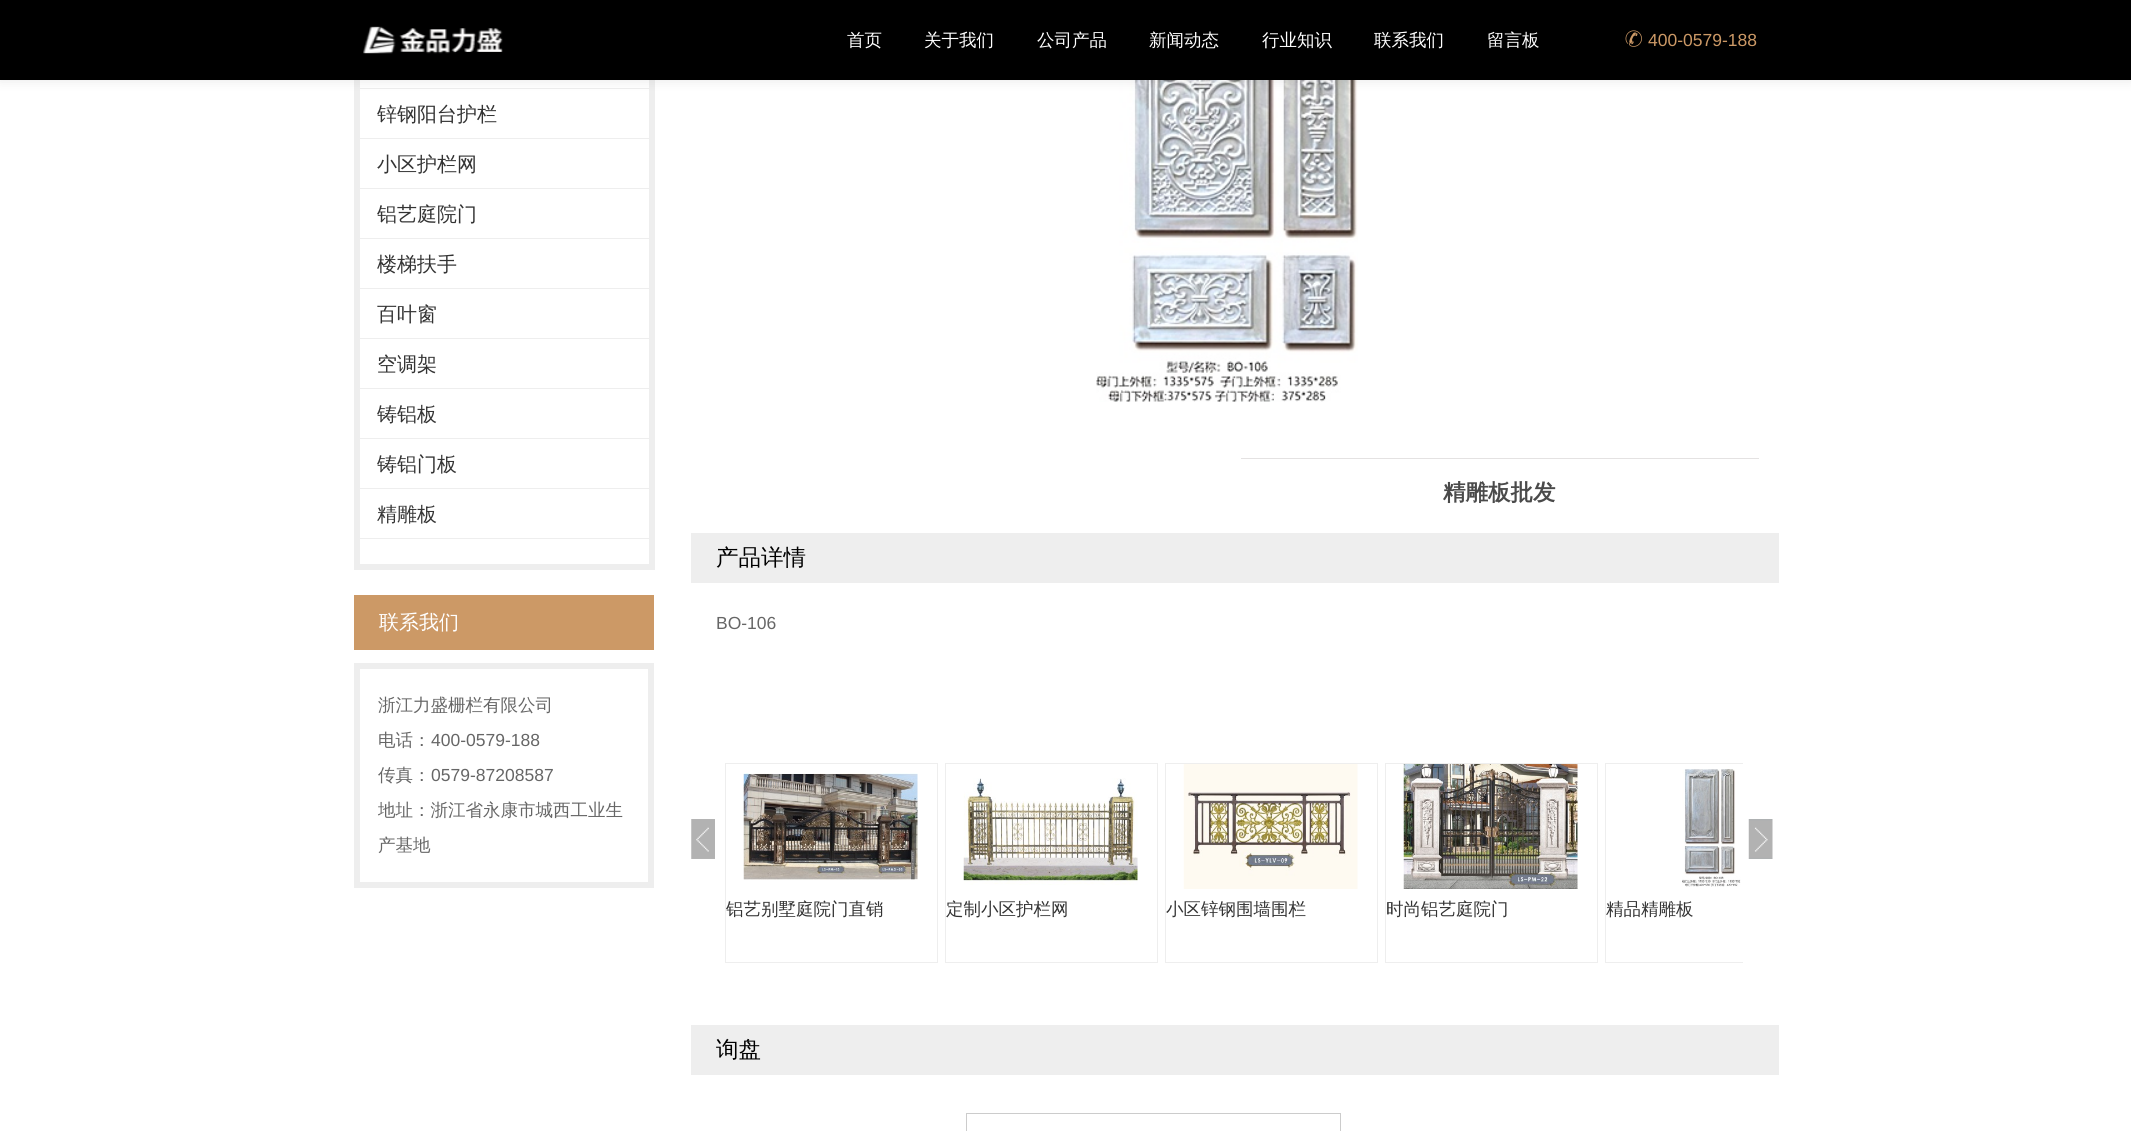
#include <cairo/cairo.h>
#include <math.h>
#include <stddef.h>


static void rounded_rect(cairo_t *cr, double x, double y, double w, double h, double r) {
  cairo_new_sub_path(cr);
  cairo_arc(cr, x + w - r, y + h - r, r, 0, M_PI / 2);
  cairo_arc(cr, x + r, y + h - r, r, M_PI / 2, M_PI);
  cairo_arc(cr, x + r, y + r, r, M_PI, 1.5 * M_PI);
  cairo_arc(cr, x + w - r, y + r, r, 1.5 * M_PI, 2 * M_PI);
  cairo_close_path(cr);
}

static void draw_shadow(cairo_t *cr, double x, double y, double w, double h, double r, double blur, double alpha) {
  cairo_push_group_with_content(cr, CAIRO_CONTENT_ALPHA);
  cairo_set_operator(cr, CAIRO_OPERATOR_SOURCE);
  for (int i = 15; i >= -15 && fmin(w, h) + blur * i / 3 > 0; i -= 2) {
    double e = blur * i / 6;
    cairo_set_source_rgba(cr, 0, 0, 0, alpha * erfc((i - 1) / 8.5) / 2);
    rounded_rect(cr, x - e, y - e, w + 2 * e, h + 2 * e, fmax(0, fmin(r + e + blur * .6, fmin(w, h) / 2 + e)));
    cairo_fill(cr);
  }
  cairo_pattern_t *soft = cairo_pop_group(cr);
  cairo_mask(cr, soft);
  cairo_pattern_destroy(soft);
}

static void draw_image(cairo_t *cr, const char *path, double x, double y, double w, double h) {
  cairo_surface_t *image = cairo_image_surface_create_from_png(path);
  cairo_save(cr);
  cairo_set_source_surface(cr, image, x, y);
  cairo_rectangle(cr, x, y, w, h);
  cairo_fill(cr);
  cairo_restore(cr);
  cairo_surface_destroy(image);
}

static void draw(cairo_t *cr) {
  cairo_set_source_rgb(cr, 1, 1, 1);
  cairo_paint(cr);
  cairo_rectangle(cr, 357, -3, 295, 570);
  cairo_set_source_rgb(cr, 238 / 255.0, 238 / 255.0, 238 / 255.0);
  cairo_set_line_width(cr, 6);
  cairo_stroke(cr);
  cairo_rectangle(cr, 360, 88, 289, 1);
  cairo_fill(cr);
  draw_image(cr, "images/3.png", 1096, 80, 262, 322);
  cairo_set_source_rgb(cr, 0, 0, 0);
  draw_shadow(cr, 0, 0, 2131, 80, 0, 6, 0.1);
  cairo_set_source_rgb(cr, 0, 0, 0);
  cairo_rectangle(cr, 0, 0, 2131, 80);
  cairo_fill(cr);
  draw_image(cr, "images/1.png", 363, 26, 140, 28);
  draw_image(cr, "images/2.png", 1625, 30, 17, 17);
  cairo_set_source_rgb(cr, 238 / 255.0, 238 / 255.0, 238 / 255.0);
  cairo_rectangle(cr, 360, 138, 289, 1);
  cairo_fill(cr);
  cairo_rectangle(cr, 360, 188, 289, 1);
  cairo_fill(cr);
  cairo_rectangle(cr, 360, 238, 289, 1);
  cairo_fill(cr);
  cairo_rectangle(cr, 360, 288, 289, 1);
  cairo_fill(cr);
  cairo_rectangle(cr, 360, 338, 289, 1);
  cairo_fill(cr);
  cairo_rectangle(cr, 360, 388, 289, 1);
  cairo_fill(cr);
  cairo_rectangle(cr, 360, 438, 289, 1);
  cairo_fill(cr);
  cairo_rectangle(cr, 360, 488, 289, 1);
  cairo_fill(cr);
  cairo_rectangle(cr, 360, 538, 289, 1);
  cairo_fill(cr);
  cairo_set_source_rgb(cr, 204 / 255.0, 153 / 255.0, 102 / 255.0);
  cairo_rectangle(cr, 354, 595, 300, 55);
  cairo_fill(cr);
  cairo_rectangle(cr, 357, 666, 294, 219);
  cairo_set_source_rgb(cr, 238 / 255.0, 238 / 255.0, 238 / 255.0);
  cairo_stroke(cr);
  cairo_set_source_rgb(cr, 228 / 255.0, 226 / 255.0, 226 / 255.0);
  cairo_rectangle(cr, 1241, 458, 518, 1);
  cairo_fill(cr);
  cairo_set_source_rgb(cr, 238 / 255.0, 238 / 255.0, 238 / 255.0);
  cairo_rectangle(cr, 691, 533, 1088, 50);
  cairo_fill(cr);
  draw_image(cr, "images/4.png", 691, 819, 24, 40);
  draw_image(cr, "images/5.png", 1748, 819, 25, 40);
  cairo_rectangle(cr, 725.5, 763.5, 212, 199);
  cairo_set_line_width(cr, 1);
  cairo_stroke(cr);
  draw_image(cr, "images/6.png", 743, 773, 175, 107);
  cairo_rectangle(cr, 945.5, 763.5, 212, 199);
  cairo_stroke(cr);
  draw_image(cr, "images/7.png", 963, 778, 175, 107);
  cairo_rectangle(cr, 1165.5, 763.5, 212, 199);
  cairo_stroke(cr);
  draw_image(cr, "images/8.png", 1183, 764, 175, 125);
  cairo_rectangle(cr, 1385.5, 763.5, 212, 199);
  cairo_stroke(cr);
  draw_image(cr, "images/9.png", 1403, 764, 175, 125);
  cairo_save(cr);
  cairo_rectangle(cr, 721, 763, 1022, 200);
  cairo_clip(cr);
  cairo_rectangle(cr, 1605.5, 763.5, 212, 199);
  cairo_stroke(cr);
  cairo_restore(cr);
  draw_image(cr, "images/10.png", 1682, 769, 59, 118);
  cairo_rectangle(cr, 691, 1025, 1088, 50);
  cairo_fill(cr);
  cairo_rectangle(cr, 966.5, 1113.5, 374, 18);
  cairo_set_source_rgb(cr, 204 / 255.0, 204 / 255.0, 204 / 255.0);
  cairo_stroke(cr);
  cairo_select_font_face(cr, "WenQuanYi Zen Hei Medium", CAIRO_FONT_SLANT_NORMAL, CAIRO_FONT_WEIGHT_NORMAL);
  cairo_set_font_size(cr, 17.5);
  cairo_set_source_rgb(cr, 1, 1, 1);
  cairo_move_to(cr, 847, 46);
  cairo_show_text(cr, "首页");
  cairo_move_to(cr, 924, 46);
  cairo_show_text(cr, "关于我们");
  cairo_move_to(cr, 1037, 46);
  cairo_show_text(cr, "公司产品");
  cairo_move_to(cr, 1149, 46);
  cairo_show_text(cr, "新闻动态");
  cairo_move_to(cr, 1262, 46);
  cairo_show_text(cr, "行业知识");
  cairo_move_to(cr, 1374, 46);
  cairo_show_text(cr, "联系我们");
  cairo_move_to(cr, 1487, 46);
  cairo_show_text(cr, "留言板");
  cairo_select_font_face(cr, "Liberation Sans", CAIRO_FONT_SLANT_NORMAL, CAIRO_FONT_WEIGHT_NORMAL);
  cairo_set_source_rgb(cr, 204 / 255.0, 153 / 255.0, 102 / 255.0);
  cairo_move_to(cr, 1648, 46);
  cairo_show_text(cr, "400-0579-188");
  cairo_select_font_face(cr, "WenQuanYi Zen Hei Medium", CAIRO_FONT_SLANT_NORMAL, CAIRO_FONT_WEIGHT_NORMAL);
  cairo_set_font_size(cr, 20);
  cairo_set_source_rgb(cr, 51 / 255.0, 51 / 255.0, 51 / 255.0);
  cairo_move_to(cr, 377, 121);
  cairo_show_text(cr, "锌钢阳台护栏");
  cairo_move_to(cr, 377, 171);
  cairo_show_text(cr, "小区护栏网");
  cairo_move_to(cr, 377, 221);
  cairo_show_text(cr, "铝艺庭院门");
  cairo_move_to(cr, 377, 271);
  cairo_show_text(cr, "楼梯扶手");
  cairo_move_to(cr, 377, 321);
  cairo_show_text(cr, "百叶窗");
  cairo_move_to(cr, 377, 371);
  cairo_show_text(cr, "空调架");
  cairo_move_to(cr, 377, 421);
  cairo_show_text(cr, "铸铝板");
  cairo_move_to(cr, 377, 471);
  cairo_show_text(cr, "铸铝门板");
  cairo_move_to(cr, 377, 521);
  cairo_show_text(cr, "精雕板");
  cairo_set_source_rgb(cr, 1, 1, 1);
  cairo_move_to(cr, 379, 629);
  cairo_show_text(cr, "联系我们");
  cairo_set_font_size(cr, 17.5);
  cairo_set_source_rgb(cr, 102 / 255.0, 102 / 255.0, 102 / 255.0);
  cairo_move_to(cr, 378, 711);
  cairo_show_text(cr, "浙江力盛栅栏有限公司");
  cairo_move_to(cr, 378, 746);
  cairo_show_text(cr, "电话：");
  cairo_select_font_face(cr, "Liberation Sans", CAIRO_FONT_SLANT_NORMAL, CAIRO_FONT_WEIGHT_NORMAL);
  cairo_move_to(cr, 431, 746);
  cairo_show_text(cr, "400-0579-188");
  cairo_select_font_face(cr, "WenQuanYi Zen Hei Medium", CAIRO_FONT_SLANT_NORMAL, CAIRO_FONT_WEIGHT_NORMAL);
  cairo_move_to(cr, 378, 781);
  cairo_show_text(cr, "传真：");
  cairo_select_font_face(cr, "Liberation Sans", CAIRO_FONT_SLANT_NORMAL, CAIRO_FONT_WEIGHT_NORMAL);
  cairo_move_to(cr, 431, 781);
  cairo_show_text(cr, "0579-87208587");
  cairo_select_font_face(cr, "WenQuanYi Zen Hei Medium", CAIRO_FONT_SLANT_NORMAL, CAIRO_FONT_WEIGHT_NORMAL);
  cairo_move_to(cr, 378, 816);
  cairo_show_text(cr, "地址：浙江省永康市城西工业生");
  cairo_move_to(cr, 378, 851);
  cairo_show_text(cr, "产基地");
  cairo_select_font_face(cr, "WenQuanYi Zen Hei", CAIRO_FONT_SLANT_NORMAL, CAIRO_FONT_WEIGHT_BOLD);
  cairo_set_font_size(cr, 22.5);
  cairo_set_source_rgb(cr, 74 / 255.0, 74 / 255.0, 74 / 255.0);
  cairo_move_to(cr, 1443, 500);
  cairo_show_text(cr, "精雕板批发");
  cairo_select_font_face(cr, "WenQuanYi Zen Hei Medium", CAIRO_FONT_SLANT_NORMAL, CAIRO_FONT_WEIGHT_NORMAL);
  cairo_set_source_rgb(cr, 0, 0, 0);
  cairo_move_to(cr, 716, 565);
  cairo_show_text(cr, "产品详情");
  cairo_select_font_face(cr, "Liberation Sans", CAIRO_FONT_SLANT_NORMAL, CAIRO_FONT_WEIGHT_NORMAL);
  cairo_set_font_size(cr, 17.5);
  cairo_set_source_rgb(cr, 102 / 255.0, 102 / 255.0, 102 / 255.0);
  cairo_move_to(cr, 716, 629);
  cairo_show_text(cr, "BO-106");
  cairo_select_font_face(cr, "WenQuanYi Zen Hei Medium", CAIRO_FONT_SLANT_NORMAL, CAIRO_FONT_WEIGHT_NORMAL);
  cairo_set_source_rgb(cr, 51 / 255.0, 51 / 255.0, 51 / 255.0);
  cairo_move_to(cr, 726, 915);
  cairo_show_text(cr, "铝艺别墅庭院门直销");
  cairo_move_to(cr, 946, 915);
  cairo_show_text(cr, "定制小区护栏网");
  cairo_move_to(cr, 1166, 915);
  cairo_show_text(cr, "小区锌钢围墙围栏");
  cairo_move_to(cr, 1386, 915);
  cairo_show_text(cr, "时尚铝艺庭院门");
  cairo_move_to(cr, 1606, 915);
  cairo_show_text(cr, "精品精雕板");
  cairo_set_font_size(cr, 22.5);
  cairo_set_source_rgb(cr, 0, 0, 0);
  cairo_move_to(cr, 716, 1057);
  cairo_show_text(cr, "询盘");
}

int main(void) {
  cairo_surface_t *surface = cairo_image_surface_create(CAIRO_FORMAT_RGB24, 2131, 1131);
  cairo_t *cr = cairo_create(surface);
  cairo_font_options_t *options = cairo_font_options_create();
  cairo_font_options_set_hint_metrics(options, CAIRO_HINT_METRICS_OFF);
  cairo_font_options_set_hint_style(options, CAIRO_HINT_STYLE_NONE);
  cairo_set_font_options(cr, options);
  cairo_set_miter_limit(cr, 4);
  draw(cr);
  cairo_surface_write_to_png(surface, "out.png");
  cairo_font_options_destroy(options);
  cairo_destroy(cr);
  cairo_surface_destroy(surface);
  return 0;
}
